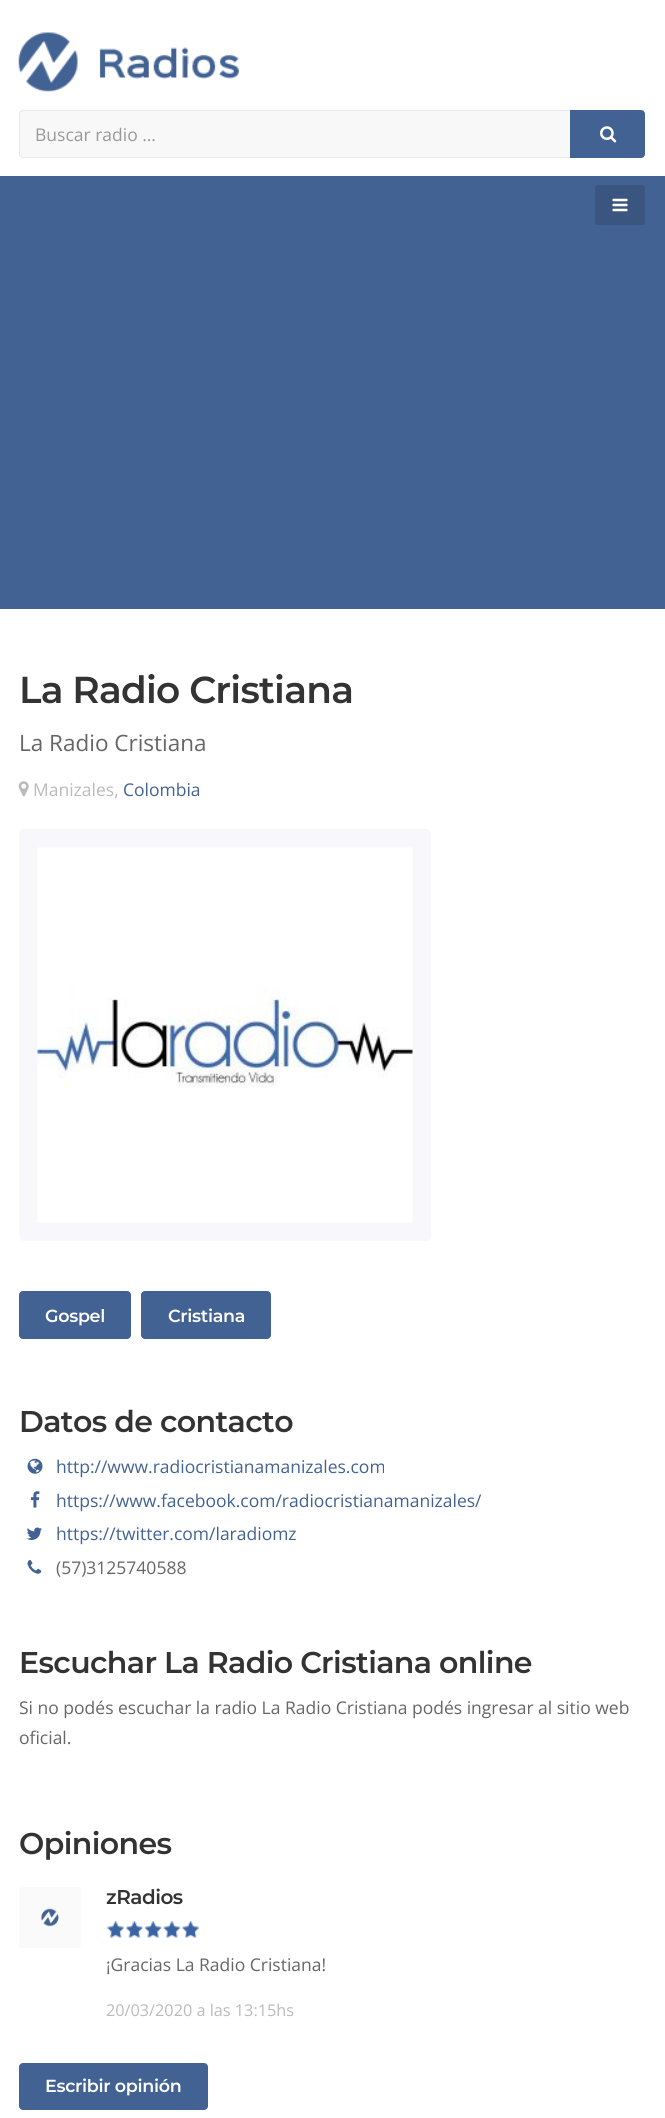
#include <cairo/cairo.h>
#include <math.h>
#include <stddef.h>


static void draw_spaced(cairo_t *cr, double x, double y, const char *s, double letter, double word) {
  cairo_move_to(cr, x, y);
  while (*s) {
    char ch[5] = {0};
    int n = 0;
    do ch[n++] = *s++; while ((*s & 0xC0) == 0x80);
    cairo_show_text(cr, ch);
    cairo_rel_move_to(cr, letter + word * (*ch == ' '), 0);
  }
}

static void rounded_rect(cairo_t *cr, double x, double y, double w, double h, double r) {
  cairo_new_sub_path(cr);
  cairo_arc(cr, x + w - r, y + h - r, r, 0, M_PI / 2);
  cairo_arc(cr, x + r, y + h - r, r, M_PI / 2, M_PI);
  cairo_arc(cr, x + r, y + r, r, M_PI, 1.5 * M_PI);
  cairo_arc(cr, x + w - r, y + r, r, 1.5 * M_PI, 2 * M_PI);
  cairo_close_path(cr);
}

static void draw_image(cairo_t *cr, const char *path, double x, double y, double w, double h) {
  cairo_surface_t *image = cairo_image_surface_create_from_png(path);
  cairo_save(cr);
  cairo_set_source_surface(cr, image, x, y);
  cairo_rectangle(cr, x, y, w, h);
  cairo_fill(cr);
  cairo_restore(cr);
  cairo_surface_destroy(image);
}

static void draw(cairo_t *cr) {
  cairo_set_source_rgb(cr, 1, 1, 1);
  cairo_paint(cr);
  draw_image(cr, "images/1.png", 18, 32, 221, 60);
  cairo_set_source_rgb(cr, 248 / 255.0, 248 / 255.0, 248 / 255.0);
  cairo_new_path(cr);
  cairo_move_to(cr, 23, 110.5);
  cairo_line_to(cr, 570.5, 110.5);
  cairo_line_to(cr, 570.5, 157.5);
  cairo_line_to(cr, 23, 157.5);
  cairo_curve_to(cr, 21, 157.5, 19.5, 156, 19.5, 154);
  cairo_line_to(cr, 19.5, 114);
  cairo_curve_to(cr, 19.5, 112, 21, 110.5, 23, 110.5);
  cairo_close_path(cr);
  cairo_fill_preserve(cr);
  cairo_set_source_rgb(cr, 232 / 255.0, 232 / 255.0, 232 / 255.0);
  cairo_set_line_width(cr, 1);
  cairo_stroke(cr);
  cairo_set_source_rgb(cr, 66 / 255.0, 98 / 255.0, 147 / 255.0);
  cairo_new_path(cr);
  cairo_move_to(cr, 570.5, 110.5);
  cairo_line_to(cr, 641, 110.5);
  cairo_curve_to(cr, 643, 110.5, 644.5, 112, 644.5, 114);
  cairo_line_to(cr, 644.5, 154);
  cairo_curve_to(cr, 644.5, 156, 643, 157.5, 641, 157.5);
  cairo_line_to(cr, 570.5, 157.5);
  cairo_close_path(cr);
  cairo_fill_preserve(cr);
  cairo_stroke(cr);
  draw_image(cr, "images/2.png", 600, 126, 17, 17);
  cairo_rectangle(cr, 0, 176, 665, 433);
  cairo_fill(cr);
  cairo_set_source_rgb(cr, 58 / 255.0, 85 / 255.0, 127 / 255.0);
  rounded_rect(cr, 594.5, 184.5, 51, 41, 3.5);
  cairo_fill_preserve(cr);
  cairo_set_source_rgb(cr, 66 / 255.0, 98 / 255.0, 147 / 255.0);
  cairo_stroke(cr);
  draw_image(cr, "images/3.png", 612, 198, 16, 14);
  draw_image(cr, "images/4.png", 18, 781, 11, 16);
  cairo_set_source_rgb(cr, 248 / 255.0, 247 / 255.0, 252 / 255.0);
  rounded_rect(cr, 19, 829, 412, 412, 5);
  cairo_fill(cr);
  draw_image(cr, "images/5.png", 37, 847, 376, 376);
  cairo_set_source_rgb(cr, 66 / 255.0, 98 / 255.0, 147 / 255.0);
  rounded_rect(cr, 19.5, 1291.5, 111, 47, 3.5);
  cairo_fill_preserve(cr);
  cairo_stroke(cr);
  rounded_rect(cr, 141.5, 1291.5, 129, 47, 3.5);
  cairo_fill_preserve(cr);
  cairo_stroke(cr);
  draw_image(cr, "images/6.png", 27, 1458, 16, 16);
  draw_image(cr, "images/7.png", 30, 1491, 10, 17);
  draw_image(cr, "images/8.png", 26, 1527, 16, 13);
  draw_image(cr, "images/9.png", 27, 1560, 15, 14);
  draw_image(cr, "images/10.png", 19, 1887, 62, 61);
  draw_image(cr, "images/11.png", 107, 1921, 92, 17);
  rounded_rect(cr, 19.5, 2063.5, 188, 46, 3.5);
  cairo_fill_preserve(cr);
  cairo_stroke(cr);
  cairo_select_font_face(cr, "Open Sans", CAIRO_FONT_SLANT_NORMAL, CAIRO_FONT_WEIGHT_NORMAL);
  cairo_set_font_size(cr, 17.5);
  cairo_set_source_rgb(cr, 153 / 255.0, 153 / 255.0, 153 / 255.0);
  cairo_move_to(cr, 35, 141);
  cairo_show_text(cr, "Buscar radio …");
  cairo_select_font_face(cr, "Montserrat SemiBold", CAIRO_FONT_SLANT_NORMAL, CAIRO_FONT_WEIGHT_NORMAL);
  cairo_set_font_size(cr, 37.5);
  cairo_set_source_rgb(cr, 51 / 255.0, 51 / 255.0, 51 / 255.0);
  draw_spaced(cr, 19, 703, "La Radio Cristiana", -0.75, 0);
  cairo_select_font_face(cr, "Open Sans", CAIRO_FONT_SLANT_NORMAL, CAIRO_FONT_WEIGHT_NORMAL);
  cairo_set_font_size(cr, 22.5);
  cairo_set_source_rgb(cr, 102 / 255.0, 102 / 255.0, 102 / 255.0);
  cairo_move_to(cr, 19, 751);
  cairo_show_text(cr, "La Radio Cristiana");
  cairo_set_font_size(cr, 17.5);
  cairo_set_source_rgb(cr, 187 / 255.0, 187 / 255.0, 187 / 255.0);
  cairo_move_to(cr, 33, 796);
  cairo_show_text(cr, "Manizales,");
  cairo_set_source_rgb(cr, 66 / 255.0, 98 / 255.0, 147 / 255.0);
  cairo_move_to(cr, 123, 796);
  cairo_show_text(cr, "Colombia");
  cairo_select_font_face(cr, "Montserrat SemiBold", CAIRO_FONT_SLANT_NORMAL, CAIRO_FONT_WEIGHT_NORMAL);
  cairo_set_source_rgb(cr, 1, 1, 1);
  draw_spaced(cr, 45, 1322, "Gospel", -0.3, 0);
  draw_spaced(cr, 168, 1322, "Cristiana", -0.3, 0);
  cairo_set_font_size(cr, 30);
  cairo_set_source_rgb(cr, 51 / 255.0, 51 / 255.0, 51 / 255.0);
  draw_spaced(cr, 19, 1432, "Datos de contacto", -0.6, 0);
  cairo_select_font_face(cr, "Open Sans", CAIRO_FONT_SLANT_NORMAL, CAIRO_FONT_WEIGHT_NORMAL);
  cairo_set_font_size(cr, 17.5);
  cairo_set_source_rgb(cr, 66 / 255.0, 98 / 255.0, 147 / 255.0);
  cairo_move_to(cr, 56, 1473);
  cairo_show_text(cr, "http://www.radiocristianamanizales.com");
  cairo_move_to(cr, 56, 1507);
  cairo_show_text(cr, "https://www.facebook.com/radiocristianamanizales/");
  cairo_move_to(cr, 56, 1540);
  cairo_show_text(cr, "https://twitter.com/laradiomz");
  cairo_set_source_rgb(cr, 102 / 255.0, 102 / 255.0, 102 / 255.0);
  cairo_move_to(cr, 56, 1574);
  cairo_show_text(cr, "(57)3125740588");
  cairo_select_font_face(cr, "Montserrat SemiBold", CAIRO_FONT_SLANT_NORMAL, CAIRO_FONT_WEIGHT_NORMAL);
  cairo_set_font_size(cr, 30);
  cairo_set_source_rgb(cr, 51 / 255.0, 51 / 255.0, 51 / 255.0);
  draw_spaced(cr, 19, 1673, "Escuchar La Radio Cristiana online", -0.6, 0);
  cairo_select_font_face(cr, "Open Sans", CAIRO_FONT_SLANT_NORMAL, CAIRO_FONT_WEIGHT_NORMAL);
  cairo_set_font_size(cr, 17.5);
  cairo_set_source_rgb(cr, 102 / 255.0, 102 / 255.0, 102 / 255.0);
  cairo_move_to(cr, 19, 1714);
  cairo_show_text(cr, "Si no podés escuchar la radio La Radio Cristiana podés ingresar al sitio web");
  cairo_move_to(cr, 19, 1744);
  cairo_show_text(cr, "oficial.");
  cairo_select_font_face(cr, "Montserrat SemiBold", CAIRO_FONT_SLANT_NORMAL, CAIRO_FONT_WEIGHT_NORMAL);
  cairo_set_font_size(cr, 30);
  cairo_set_source_rgb(cr, 51 / 255.0, 51 / 255.0, 51 / 255.0);
  draw_spaced(cr, 19, 1854, "Opiniones", -0.6, 0);
  cairo_set_font_size(cr, 20);
  draw_spaced(cr, 106, 1904, "zRadios", -0.5, 0);
  cairo_select_font_face(cr, "Open Sans", CAIRO_FONT_SLANT_NORMAL, CAIRO_FONT_WEIGHT_NORMAL);
  cairo_set_font_size(cr, 17.5);
  cairo_set_source_rgb(cr, 102 / 255.0, 102 / 255.0, 102 / 255.0);
  cairo_move_to(cr, 106, 1971);
  cairo_show_text(cr, "¡Gracias La Radio Cristiana!");
  cairo_set_font_size(cr, 16.25);
  cairo_set_source_rgb(cr, 187 / 255.0, 187 / 255.0, 187 / 255.0);
  cairo_move_to(cr, 106, 2016);
  cairo_show_text(cr, "20/03/2020 a las 13:15hs");
  cairo_select_font_face(cr, "Montserrat SemiBold", CAIRO_FONT_SLANT_NORMAL, CAIRO_FONT_WEIGHT_NORMAL);
  cairo_set_font_size(cr, 17.5);
  cairo_set_source_rgb(cr, 1, 1, 1);
  draw_spaced(cr, 45, 2092, "Escribir opinión", -0.3, 0);
}

int main(void) {
  cairo_surface_t *surface = cairo_image_surface_create(CAIRO_FORMAT_RGB24, 665, 2118);
  cairo_t *cr = cairo_create(surface);
  cairo_font_options_t *options = cairo_font_options_create();
  cairo_font_options_set_hint_metrics(options, CAIRO_HINT_METRICS_OFF);
  cairo_font_options_set_hint_style(options, CAIRO_HINT_STYLE_NONE);
  cairo_set_font_options(cr, options);
  cairo_set_miter_limit(cr, 4);
  draw(cr);
  cairo_surface_write_to_png(surface, "out.png");
  cairo_font_options_destroy(options);
  cairo_destroy(cr);
  cairo_surface_destroy(surface);
  return 0;
}
